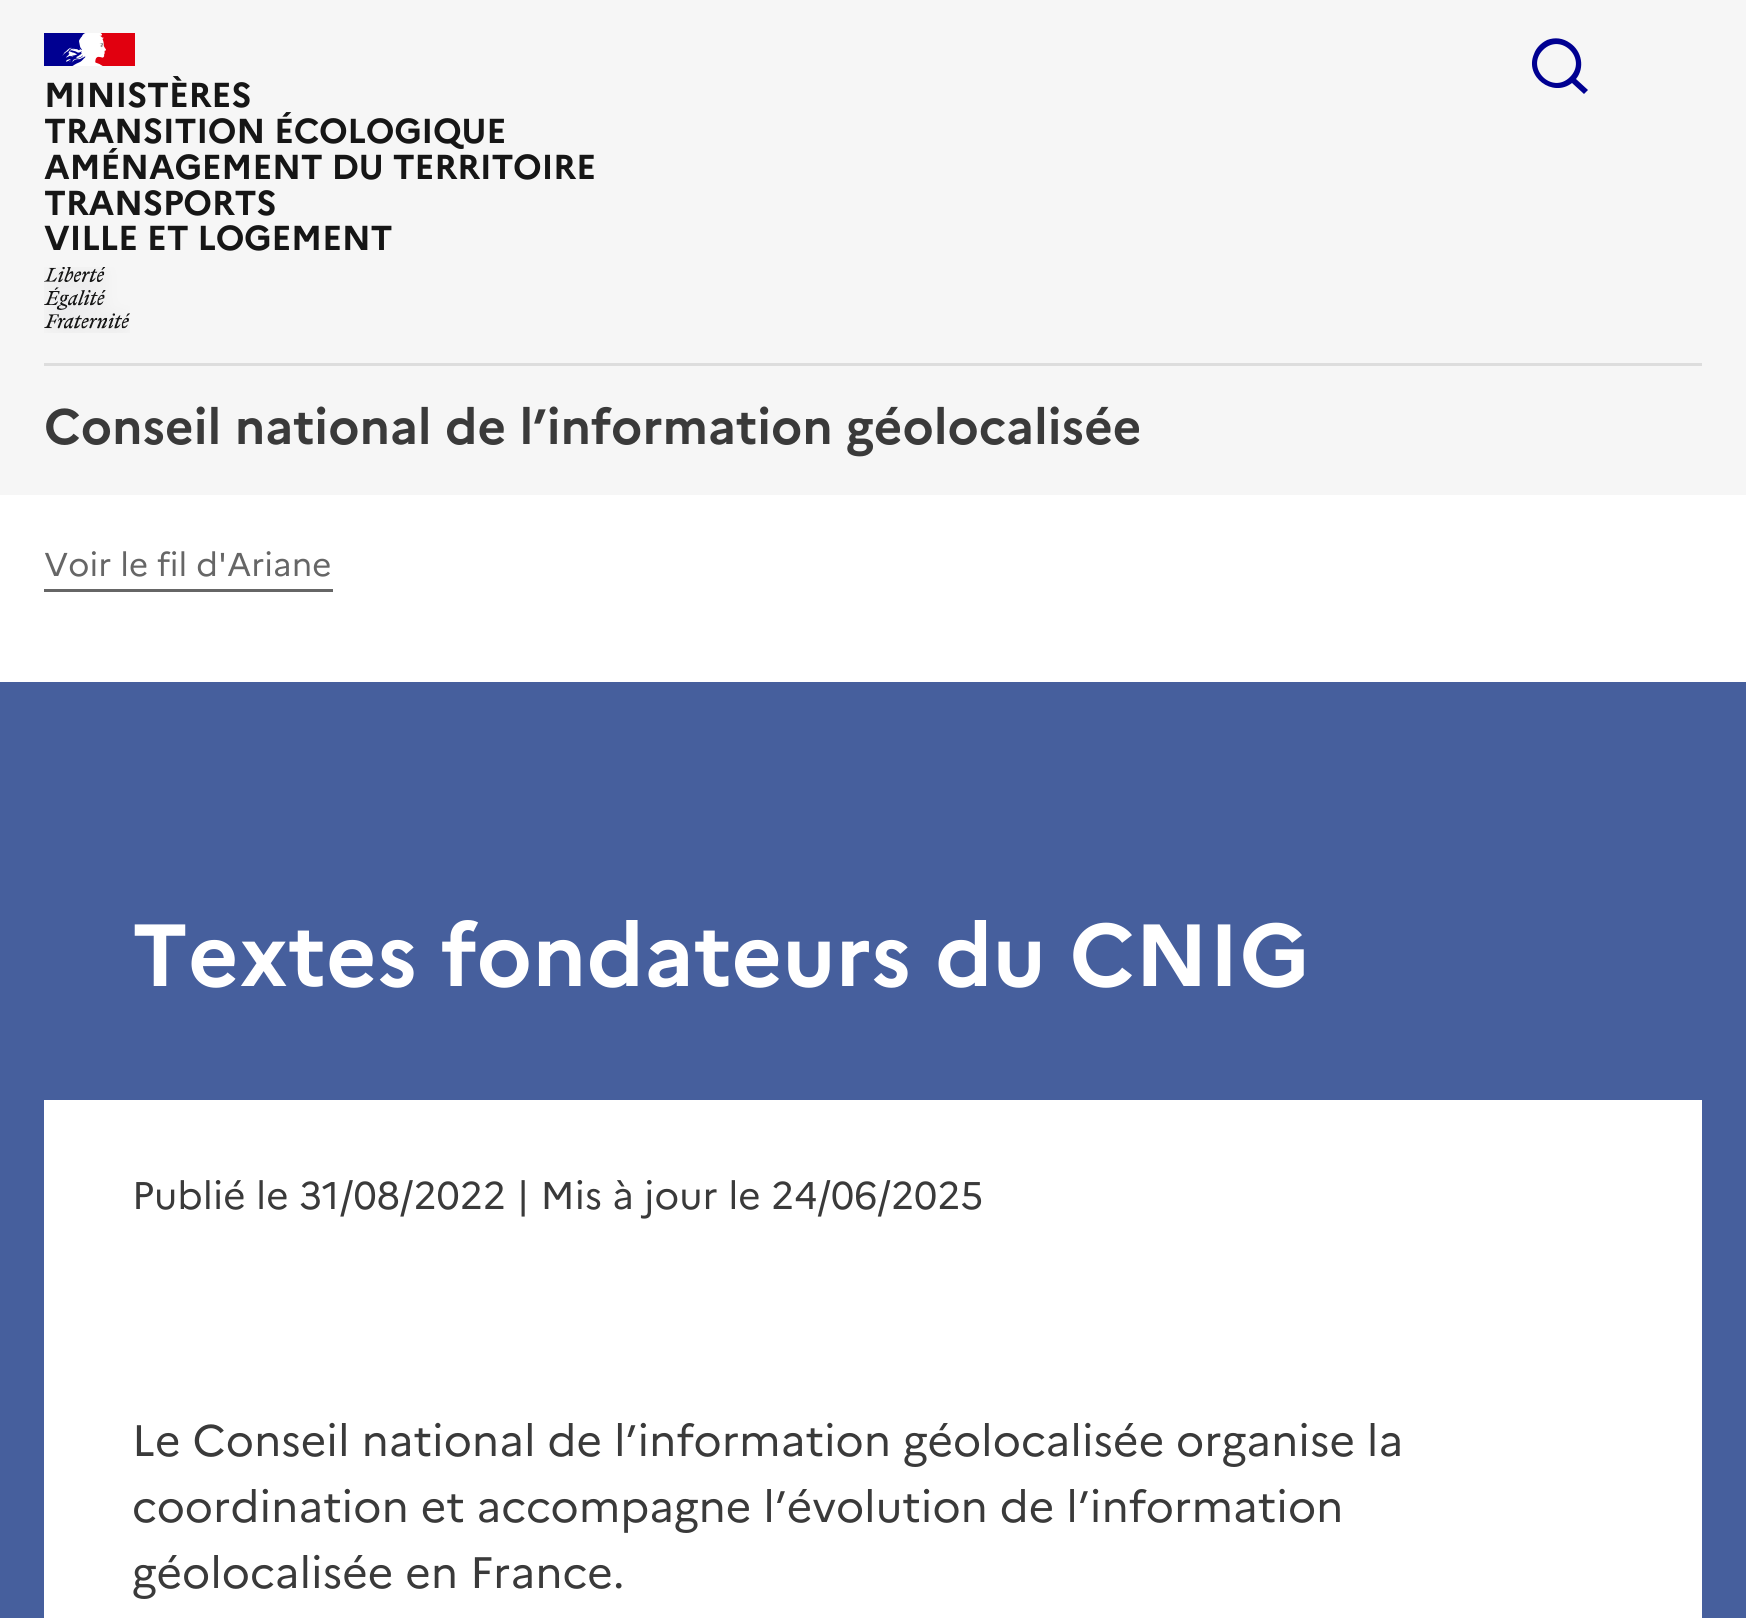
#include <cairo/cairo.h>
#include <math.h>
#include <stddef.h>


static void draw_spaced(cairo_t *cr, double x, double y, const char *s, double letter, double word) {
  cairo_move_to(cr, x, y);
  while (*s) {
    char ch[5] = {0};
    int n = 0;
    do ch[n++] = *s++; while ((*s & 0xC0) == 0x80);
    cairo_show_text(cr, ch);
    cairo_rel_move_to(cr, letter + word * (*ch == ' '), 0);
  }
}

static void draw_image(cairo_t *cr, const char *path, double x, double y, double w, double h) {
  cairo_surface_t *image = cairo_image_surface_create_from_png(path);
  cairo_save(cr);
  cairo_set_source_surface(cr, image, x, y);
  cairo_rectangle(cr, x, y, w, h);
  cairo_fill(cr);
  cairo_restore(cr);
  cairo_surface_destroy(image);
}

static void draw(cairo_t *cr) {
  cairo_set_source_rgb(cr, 1, 1, 1);
  cairo_paint(cr);
  cairo_set_source_rgb(cr, 246 / 255.0, 246 / 255.0, 246 / 255.0);
  cairo_rectangle(cr, 0, 0, 1746, 495);
  cairo_fill(cr);
  cairo_set_source_rgb(cr, 0, 0, 145 / 255.0);
  cairo_new_path(cr);
  cairo_move_to(cr, 1576, 79);
  cairo_line_to(cr, 1588, 90);
  cairo_line_to(cr, 1584, 94);
  cairo_line_to(cr, 1572, 83);
  cairo_curve_to(cr, 1553, 98, 1524, 77, 1534, 54);
  cairo_curve_to(cr, 1536, 48, 1541, 43, 1547, 40);
  cairo_curve_to(cr, 1555, 37, 1563, 38, 1570, 43);
  cairo_curve_to(cr, 1582, 51, 1585, 68, 1576, 79);
  cairo_close_path(cr);
  cairo_move_to(cr, 1570, 77);
  cairo_curve_to(cr, 1588, 59, 1561, 32, 1543, 50);
  cairo_curve_to(cr, 1525, 68, 1552, 95, 1570, 77);
  cairo_close_path(cr);
  cairo_fill(cr);
  cairo_rectangle(cr, 44, 33, 42, 33);
  cairo_fill(cr);
  cairo_set_source_rgb(cr, 225 / 255.0, 0, 15 / 255.0);
  cairo_rectangle(cr, 95, 33, 40, 33);
  cairo_fill(cr);
  draw_image(cr, "images/1.png", 62, 33, 44, 33);
  draw_image(cr, "images/2.png", 44, 267, 86, 66);
  cairo_set_source_rgb(cr, 221 / 255.0, 221 / 255.0, 221 / 255.0);
  cairo_rectangle(cr, 44, 363, 1658, 3);
  cairo_fill(cr);
  cairo_set_source_rgb(cr, 102 / 255.0, 102 / 255.0, 102 / 255.0);
  cairo_rectangle(cr, 44, 589, 289, 3);
  cairo_fill(cr);
  cairo_set_source_rgb(cr, 70 / 255.0, 95 / 255.0, 157 / 255.0);
  cairo_rectangle(cr, 0, 682, 1746, 936);
  cairo_fill(cr);
  cairo_set_source_rgb(cr, 1, 1, 1);
  cairo_rectangle(cr, 44, 1100, 1658, 518);
  cairo_fill(cr);
  cairo_select_font_face(cr, "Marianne", CAIRO_FONT_SLANT_NORMAL, CAIRO_FONT_WEIGHT_BOLD);
  cairo_set_font_size(cr, 34.6);
  cairo_set_source_rgb(cr, 22 / 255.0, 22 / 255.0, 22 / 255.0);
  draw_spaced(cr, 44, 107, "MINISTÈRES", -0.35, 0);
  draw_spaced(cr, 44, 143, "TRANSITION ÉCOLOGIQUE", -0.35, 0);
  draw_spaced(cr, 44, 179, "AMÉNAGEMENT DU TERRITOIRE", -0.35, 0);
  draw_spaced(cr, 44, 215, "TRANSPORTS", -0.35, 0);
  draw_spaced(cr, 44, 250, "VILLE ET LOGEMENT", -0.35, 0);
  cairo_set_font_size(cr, 49.5);
  cairo_set_source_rgb(cr, 58 / 255.0, 58 / 255.0, 58 / 255.0);
  cairo_move_to(cr, 44, 444);
  cairo_show_text(cr, "Conseil national de l’information géolocalisée");
  cairo_select_font_face(cr, "Marianne", CAIRO_FONT_SLANT_NORMAL, CAIRO_FONT_WEIGHT_NORMAL);
  cairo_set_font_size(cr, 33);
  cairo_set_source_rgb(cr, 102 / 255.0, 102 / 255.0, 102 / 255.0);
  cairo_move_to(cr, 44, 576);
  cairo_show_text(cr, "Voir le fil d'Ariane");
  cairo_select_font_face(cr, "Marianne", CAIRO_FONT_SLANT_NORMAL, CAIRO_FONT_WEIGHT_BOLD);
  cairo_set_font_size(cr, 88);
  cairo_set_source_rgb(cr, 1, 1, 1);
  cairo_move_to(cr, 132, 986);
  cairo_show_text(cr, "Textes fondateurs du CNIG");
  cairo_select_font_face(cr, "Marianne", CAIRO_FONT_SLANT_NORMAL, CAIRO_FONT_WEIGHT_NORMAL);
  cairo_set_font_size(cr, 38.5);
  cairo_set_source_rgb(cr, 58 / 255.0, 58 / 255.0, 58 / 255.0);
  cairo_move_to(cr, 132, 1209);
  cairo_show_text(cr, "Publié le 31/08/2022 | Mis à jour le 24/06/2025");
  cairo_set_font_size(cr, 44);
  cairo_move_to(cr, 132, 1456);
  cairo_show_text(cr, "Le Conseil national de l’information géolocalisée organise la");
  cairo_move_to(cr, 132, 1522);
  cairo_show_text(cr, "coordination et accompagne l’évolution de l’information");
  cairo_move_to(cr, 132, 1588);
  cairo_show_text(cr, "géolocalisée en France.");
}

int main(void) {
  cairo_surface_t *surface = cairo_image_surface_create(CAIRO_FORMAT_RGB24, 1746, 1618);
  cairo_t *cr = cairo_create(surface);
  cairo_font_options_t *options = cairo_font_options_create();
  cairo_font_options_set_hint_metrics(options, CAIRO_HINT_METRICS_OFF);
  cairo_font_options_set_hint_style(options, CAIRO_HINT_STYLE_NONE);
  cairo_set_font_options(cr, options);
  cairo_set_miter_limit(cr, 4);
  draw(cr);
  cairo_surface_write_to_png(surface, "out.png");
  cairo_font_options_destroy(options);
  cairo_destroy(cr);
  cairo_surface_destroy(surface);
  return 0;
}
